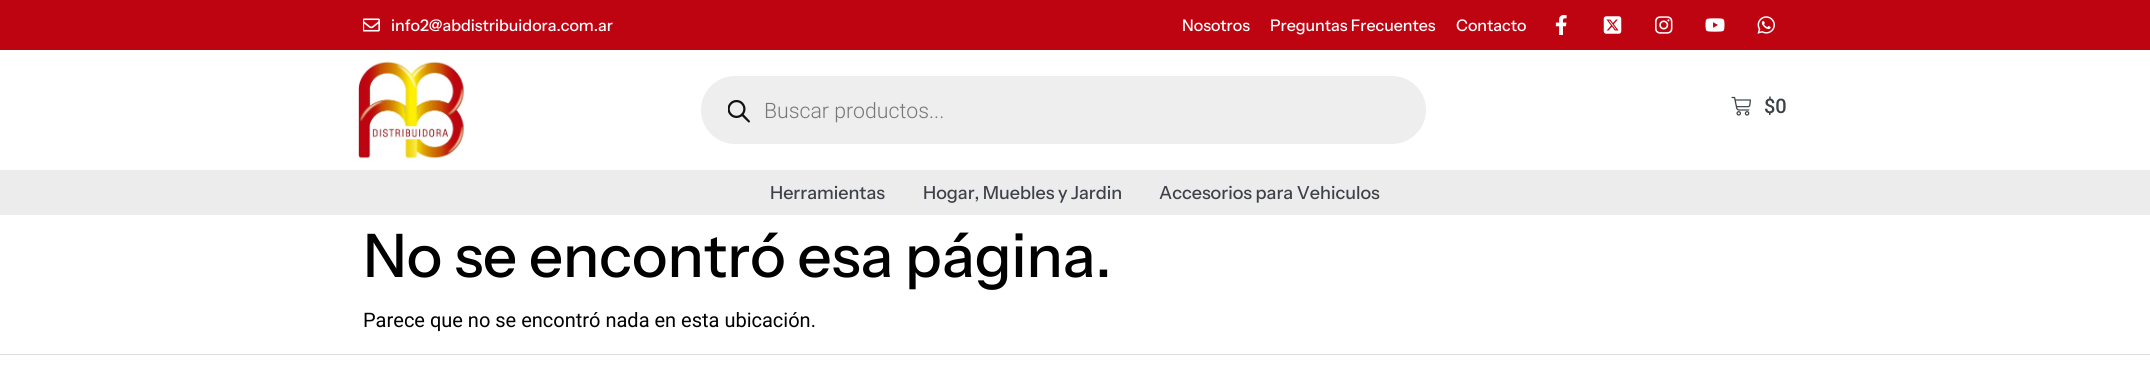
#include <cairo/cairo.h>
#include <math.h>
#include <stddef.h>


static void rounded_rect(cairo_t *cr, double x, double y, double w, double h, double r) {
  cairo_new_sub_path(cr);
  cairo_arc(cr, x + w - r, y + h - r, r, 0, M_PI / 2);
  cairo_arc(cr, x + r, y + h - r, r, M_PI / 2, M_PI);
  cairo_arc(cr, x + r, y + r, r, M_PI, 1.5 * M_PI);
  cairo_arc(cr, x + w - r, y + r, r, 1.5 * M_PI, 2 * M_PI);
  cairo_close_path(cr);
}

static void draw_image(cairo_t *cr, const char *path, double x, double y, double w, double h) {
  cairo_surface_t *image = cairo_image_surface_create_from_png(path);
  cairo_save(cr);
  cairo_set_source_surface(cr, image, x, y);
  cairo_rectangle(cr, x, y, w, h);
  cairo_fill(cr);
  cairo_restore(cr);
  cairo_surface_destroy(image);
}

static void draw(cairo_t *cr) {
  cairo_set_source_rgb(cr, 1, 1, 1);
  cairo_paint(cr);
  cairo_set_source_rgb(cr, 191 / 255.0, 4 / 255.0, 17 / 255.0);
  cairo_rectangle(cr, 0, 0, 2150, 50);
  cairo_fill(cr);
  draw_image(cr, "images/1.png", 363, 18, 17, 14);
  draw_image(cr, "images/2.png", 1555, 15, 12, 20);
  draw_image(cr, "images/3.png", 1603, 16, 19, 18);
  draw_image(cr, "images/4.png", 1655, 16, 18, 18);
  draw_image(cr, "images/5.png", 1705, 18, 20, 14);
  draw_image(cr, "images/6.png", 1757, 16, 18, 18);
  draw_image(cr, "images/7.png", 358, 61, 107, 98);
  cairo_set_source_rgb(cr, 238 / 255.0, 238 / 255.0, 238 / 255.0);
  rounded_rect(cr, 701, 76, 725, 68, 34);
  cairo_fill(cr);
  draw_image(cr, "images/8.png", 728, 100, 22, 23);
  draw_image(cr, "images/9.png", 1731, 96, 20, 20);
  cairo_set_source_rgb(cr, 236 / 255.0, 236 / 255.0, 236 / 255.0);
  cairo_rectangle(cr, 0, 170, 2150, 45);
  cairo_fill(cr);
  cairo_set_source_rgb(cr, 223 / 255.0, 223 / 255.0, 223 / 255.0);
  cairo_rectangle(cr, 0, 354, 2150, 1);
  cairo_fill(cr);
  cairo_select_font_face(cr, "Instrument Sans Medium", CAIRO_FONT_SLANT_NORMAL, CAIRO_FONT_WEIGHT_NORMAL);
  cairo_set_font_size(cr, 16);
  cairo_set_source_rgb(cr, 1, 1, 1);
  cairo_move_to(cr, 391, 31);
  cairo_show_text(cr, "info2@abdistribuidora.com.ar");
  cairo_move_to(cr, 1182, 31);
  cairo_show_text(cr, "Nosotros");
  cairo_move_to(cr, 1270, 31);
  cairo_show_text(cr, "Preguntas Frecuentes");
  cairo_move_to(cr, 1456, 31);
  cairo_show_text(cr, "Contacto");
  cairo_select_font_face(cr, "Roboto Light", CAIRO_FONT_SLANT_NORMAL, CAIRO_FONT_WEIGHT_NORMAL);
  cairo_set_font_size(cr, 21.25);
  cairo_set_source_rgb(cr, 119 / 255.0, 119 / 255.0, 119 / 255.0);
  cairo_move_to(cr, 764, 118);
  cairo_show_text(cr, "Buscar productos...");
  cairo_select_font_face(cr, "Roboto Medium", CAIRO_FONT_SLANT_NORMAL, CAIRO_FONT_WEIGHT_NORMAL);
  cairo_set_font_size(cr, 20);
  cairo_set_source_rgb(cr, 61 / 255.0, 66 / 255.0, 73 / 255.0);
  cairo_move_to(cr, 1764, 113);
  cairo_show_text(cr, "$0");
  cairo_select_font_face(cr, "Instrument Sans Medium", CAIRO_FONT_SLANT_NORMAL, CAIRO_FONT_WEIGHT_NORMAL);
  cairo_set_font_size(cr, 18);
  cairo_move_to(cr, 770, 199);
  cairo_show_text(cr, "Herramientas");
  cairo_move_to(cr, 923, 199);
  cairo_show_text(cr, "Hogar, Muebles y Jardin");
  cairo_move_to(cr, 1159, 199);
  cairo_show_text(cr, "Accesorios para Vehiculos");
  cairo_set_font_size(cr, 60);
  cairo_set_source_rgb(cr, 0, 0, 0);
  cairo_move_to(cr, 363, 277);
  cairo_show_text(cr, "No se encontró esa página.");
  cairo_select_font_face(cr, "Roboto", CAIRO_FONT_SLANT_NORMAL, CAIRO_FONT_WEIGHT_NORMAL);
  cairo_set_font_size(cr, 20);
  cairo_move_to(cr, 363, 327);
  cairo_show_text(cr, "Parece que no se encontró nada en esta ubicación.");
}

int main(void) {
  cairo_surface_t *surface = cairo_image_surface_create(CAIRO_FORMAT_RGB24, 2150, 369);
  cairo_t *cr = cairo_create(surface);
  cairo_font_options_t *options = cairo_font_options_create();
  cairo_font_options_set_hint_metrics(options, CAIRO_HINT_METRICS_OFF);
  cairo_font_options_set_hint_style(options, CAIRO_HINT_STYLE_NONE);
  cairo_set_font_options(cr, options);
  cairo_set_miter_limit(cr, 4);
  draw(cr);
  cairo_surface_write_to_png(surface, "out.png");
  cairo_font_options_destroy(options);
  cairo_destroy(cr);
  cairo_surface_destroy(surface);
  return 0;
}
